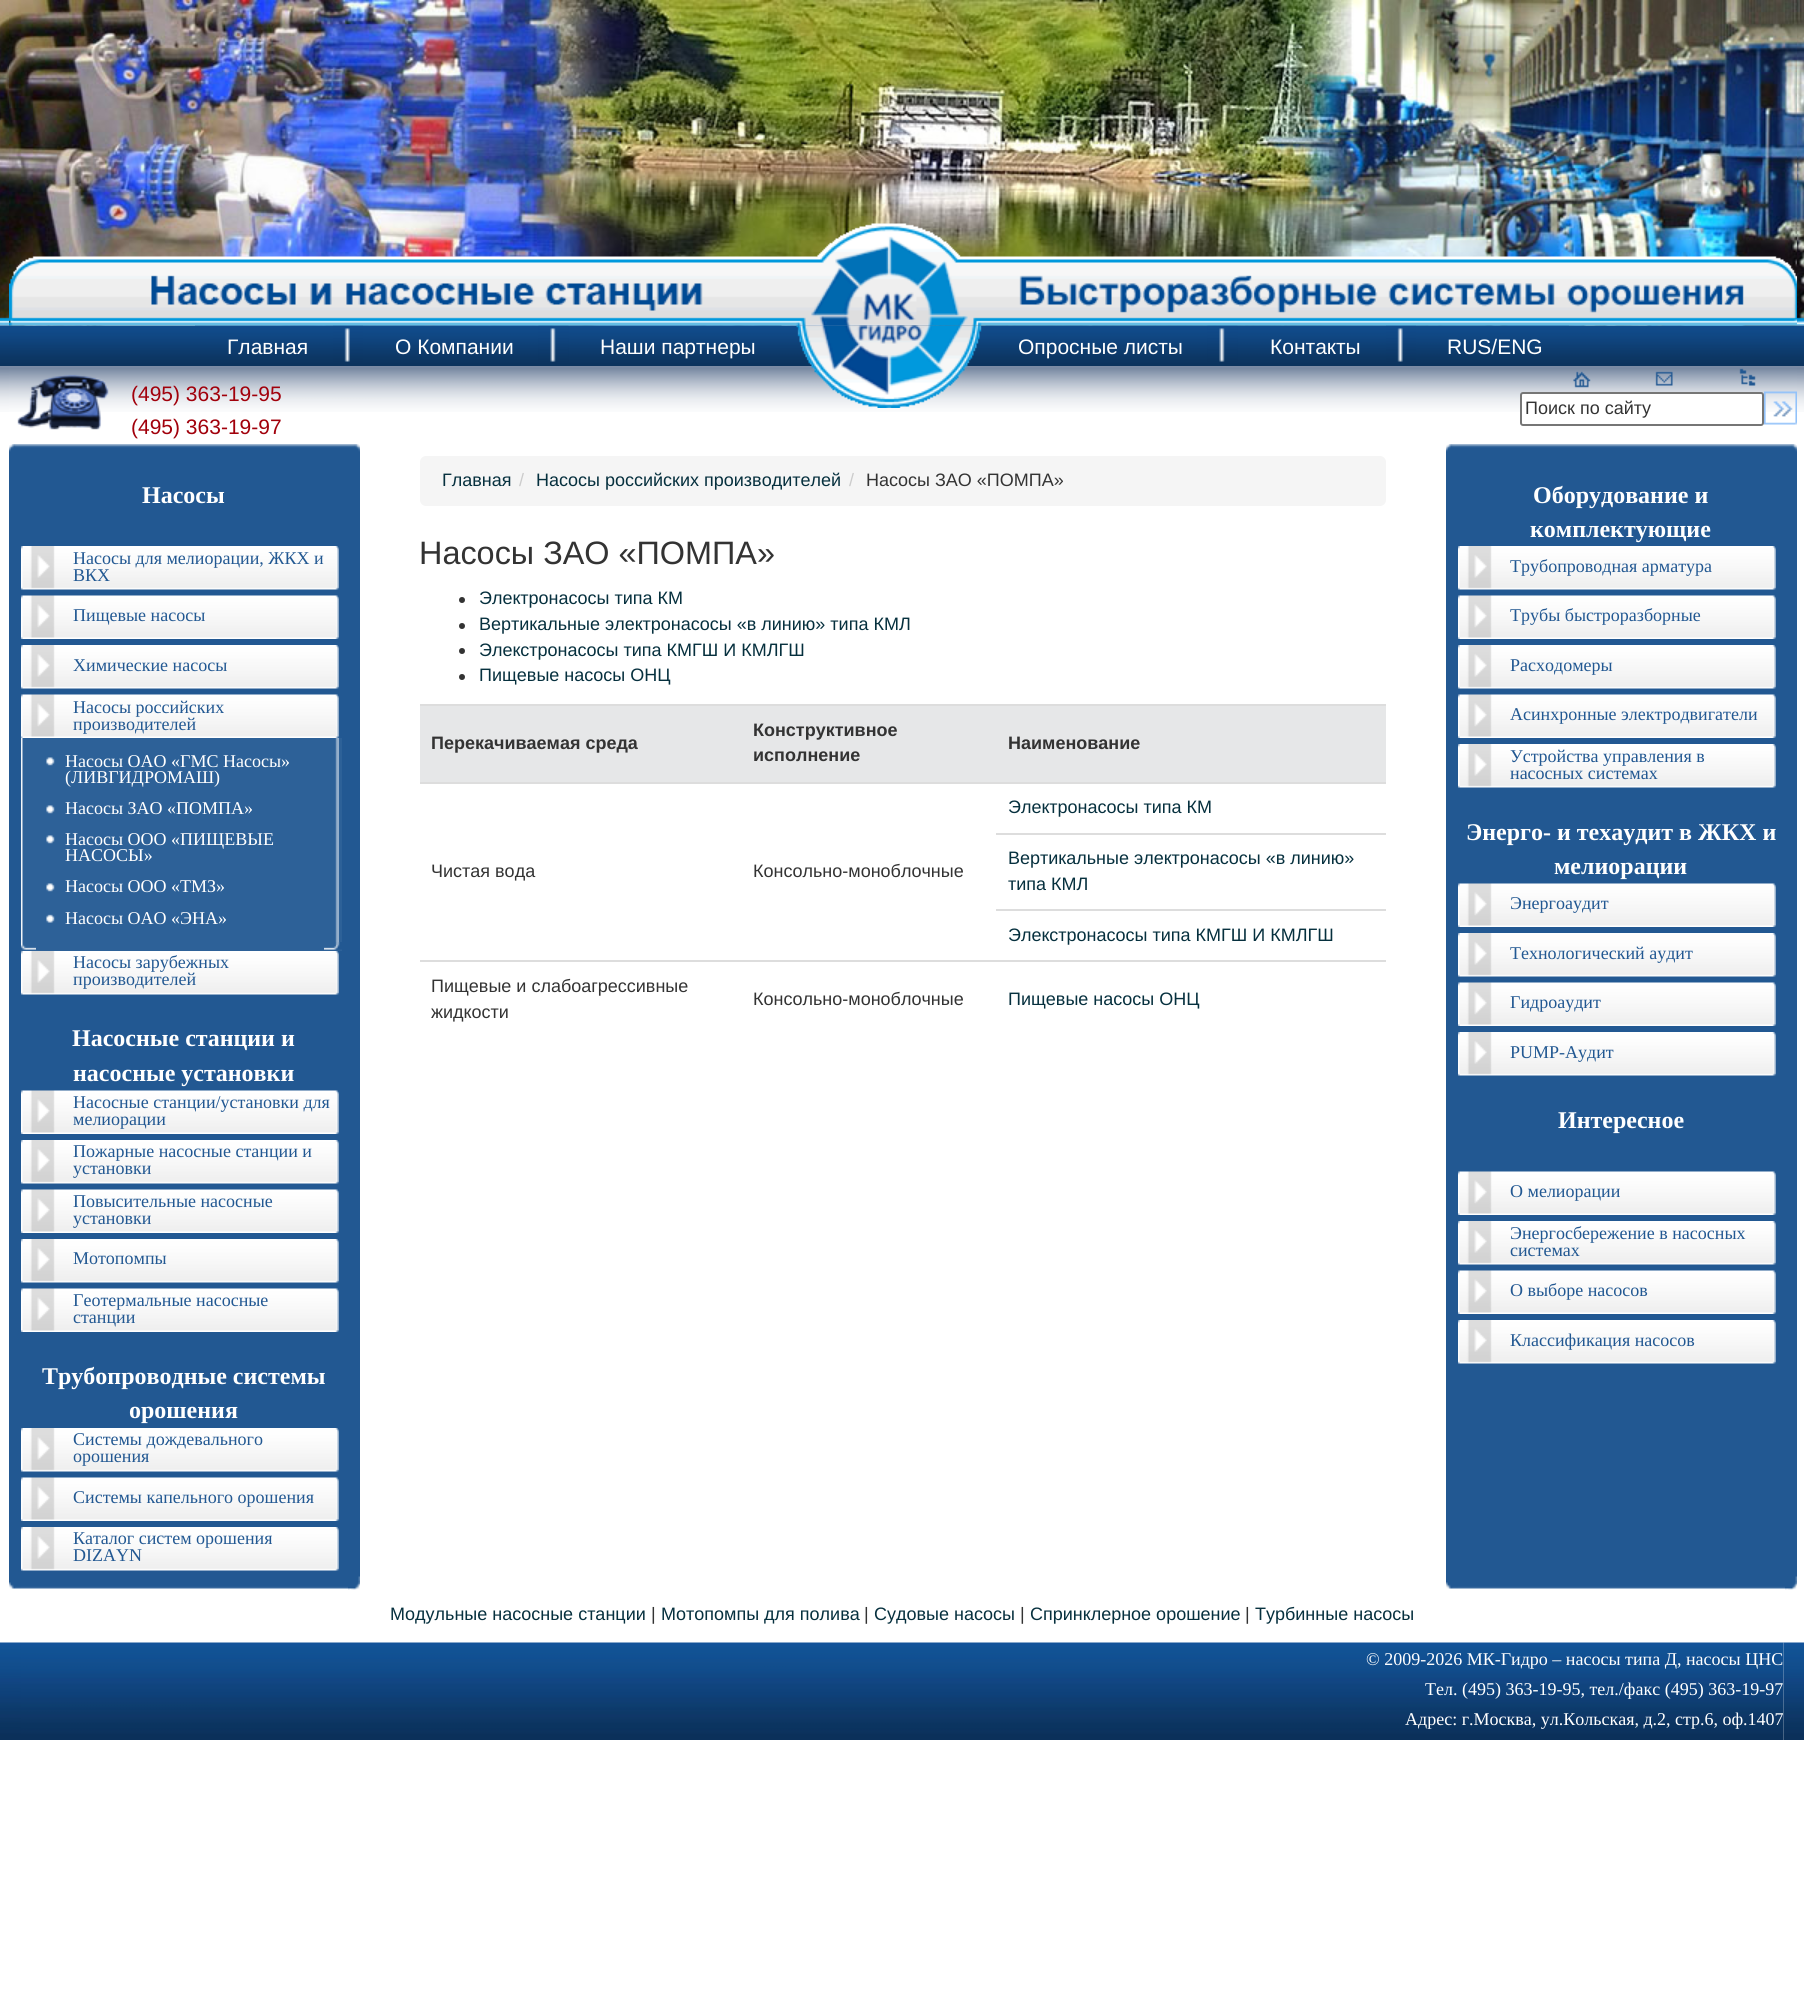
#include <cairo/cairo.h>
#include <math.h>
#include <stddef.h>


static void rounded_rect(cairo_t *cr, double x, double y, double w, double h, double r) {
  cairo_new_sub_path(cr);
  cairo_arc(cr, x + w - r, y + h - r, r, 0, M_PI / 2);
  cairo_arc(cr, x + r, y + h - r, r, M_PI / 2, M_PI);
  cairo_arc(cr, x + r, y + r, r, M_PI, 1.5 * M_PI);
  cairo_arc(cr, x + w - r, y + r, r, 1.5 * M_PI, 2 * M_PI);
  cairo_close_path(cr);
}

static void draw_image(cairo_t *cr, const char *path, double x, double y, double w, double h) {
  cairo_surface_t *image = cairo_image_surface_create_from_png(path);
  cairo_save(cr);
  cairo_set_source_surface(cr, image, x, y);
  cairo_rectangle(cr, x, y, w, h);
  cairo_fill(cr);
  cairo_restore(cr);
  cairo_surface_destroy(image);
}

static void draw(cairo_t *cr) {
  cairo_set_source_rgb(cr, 1, 1, 1);
  cairo_paint(cr);
  draw_image(cr, "images/1.png", 0, 0, 9, 326);
  draw_image(cr, "images/2.png", 9, 0, 1788, 326);
  draw_image(cr, "images/4.png", 1797, 0, 7, 326);
  draw_image(cr, "images/5.png", 0, 325, 1804, 41);
  draw_image(cr, "images/6.png", 195, 325, 587, 1);
  draw_image(cr, "images/7.png", 333, 325, 30, 37);
  draw_image(cr, "images/8.png", 538, 325, 31, 37);
  draw_image(cr, "images/9.png", 985, 325, 584, 1);
  draw_image(cr, "images/10.png", 1207, 325, 31, 37);
  draw_image(cr, "images/11.png", 1386, 325, 30, 37);
  draw_image(cr, "images/3.png", 9, 223, 1788, 103);
  draw_image(cr, "images/12.png", 0, 366, 9, 46);
  draw_image(cr, "images/13.png", 9, 366, 1788, 46);
  draw_image(cr, "images/14.png", 17, 374, 92, 56);
  draw_image(cr, "images/15.png", 796, 325, 186, 83);
  draw_image(cr, "images/16.png", 1573, 371, 18, 17);
  draw_image(cr, "images/17.png", 1655, 371, 18, 15);
  draw_image(cr, "images/18.png", 1739, 368, 17, 18);
  cairo_set_source_rgb(cr, 1, 1, 1);
  rounded_rect(cr, 1521, 393, 242, 32, 2);
  cairo_fill_preserve(cr);
  cairo_set_source_rgb(cr, 118 / 255.0, 118 / 255.0, 118 / 255.0);
  cairo_stroke(cr);
  draw_image(cr, "images/19.png", 1764, 391, 33, 34);
  draw_image(cr, "images/20.png", 1797, 366, 7, 46);
  draw_image(cr, "images/21.png", 9, 444, 12, 12);
  draw_image(cr, "images/22.png", 21, 444, 327, 12);
  draw_image(cr, "images/23.png", 348, 444, 12, 12);
  draw_image(cr, "images/21.png", 1446, 444, 12, 12);
  draw_image(cr, "images/22.png", 1458, 444, 327, 12);
  draw_image(cr, "images/23.png", 1785, 444, 12, 12);
  cairo_set_source_rgb(cr, 34 / 255.0, 88 / 255.0, 146 / 255.0);
  cairo_rectangle(cr, 9, 456, 351, 1121);
  cairo_fill(cr);
  cairo_set_source_rgb(cr, 245 / 255.0, 245 / 255.0, 245 / 255.0);
  rounded_rect(cr, 420, 456, 966, 50, 6);
  cairo_fill(cr);
  cairo_set_source_rgb(cr, 51 / 255.0, 51 / 255.0, 51 / 255.0);
  cairo_arc(cr, 462, 600, 3, 0, 2 * M_PI);
  cairo_fill(cr);
  cairo_arc(cr, 462, 626, 3, 0, 2 * M_PI);
  cairo_fill(cr);
  cairo_arc(cr, 462, 651, 3, 0, 2 * M_PI);
  cairo_fill(cr);
  cairo_arc(cr, 462, 677, 3, 0, 2 * M_PI);
  cairo_fill(cr);
  cairo_set_source_rgb(cr, 230 / 255.0, 231 / 255.0, 232 / 255.0);
  cairo_rectangle(cr, 420, 706, 966, 76);
  cairo_fill(cr);
  cairo_set_source_rgb(cr, 221 / 255.0, 221 / 255.0, 221 / 255.0);
  cairo_rectangle(cr, 420, 704, 966, 2);
  cairo_fill(cr);
  cairo_rectangle(cr, 420, 782, 966, 2);
  cairo_fill(cr);
  cairo_rectangle(cr, 996, 833, 390, 2);
  cairo_fill(cr);
  cairo_rectangle(cr, 996, 909, 390, 2);
  cairo_fill(cr);
  cairo_rectangle(cr, 420, 960, 966, 2);
  cairo_fill(cr);
  cairo_set_source_rgb(cr, 34 / 255.0, 88 / 255.0, 146 / 255.0);
  cairo_rectangle(cr, 1446, 456, 351, 1121);
  cairo_fill(cr);
  draw_image(cr, "images/24.png", 21, 546, 318, 44);
  draw_image(cr, "images/25.png", 21, 595, 318, 44);
  draw_image(cr, "images/24.png", 21, 645, 318, 44);
  draw_image(cr, "images/25.png", 21, 694, 318, 44);
  cairo_set_source_rgb(cr, 45 / 255.0, 97 / 255.0, 152 / 255.0);
  cairo_rectangle(cr, 21, 738, 321, 213);
  cairo_fill(cr);
  draw_image(cr, "images/26.png", 21, 738, 2, 204);
  draw_image(cr, "images/27.png", 46, 757, 9, 9);
  draw_image(cr, "images/27.png", 46, 805, 9, 9);
  draw_image(cr, "images/27.png", 46, 835, 9, 9);
  draw_image(cr, "images/27.png", 46, 883, 9, 9);
  draw_image(cr, "images/28.png", 46, 914, 9, 9);
  draw_image(cr, "images/29.png", 335, 738, 4, 204);
  draw_image(cr, "images/30.png", 21, 942, 15, 8);
  draw_image(cr, "images/31.png", 324, 942, 18, 8);
  draw_image(cr, "images/24.png", 21, 951, 318, 44);
  draw_image(cr, "images/25.png", 21, 1090, 318, 44);
  draw_image(cr, "images/24.png", 21, 1140, 318, 44);
  draw_image(cr, "images/25.png", 21, 1189, 318, 44);
  draw_image(cr, "images/24.png", 21, 1239, 318, 44);
  draw_image(cr, "images/25.png", 21, 1288, 318, 44);
  draw_image(cr, "images/24.png", 21, 1428, 318, 44);
  draw_image(cr, "images/25.png", 21, 1477, 318, 44);
  draw_image(cr, "images/24.png", 21, 1527, 318, 44);
  draw_image(cr, "images/24.png", 1458, 546, 318, 44);
  draw_image(cr, "images/25.png", 1458, 595, 318, 44);
  draw_image(cr, "images/24.png", 1458, 645, 318, 44);
  draw_image(cr, "images/25.png", 1458, 694, 318, 44);
  draw_image(cr, "images/24.png", 1458, 744, 318, 44);
  draw_image(cr, "images/25.png", 1458, 883, 318, 44);
  draw_image(cr, "images/24.png", 1458, 933, 318, 44);
  draw_image(cr, "images/25.png", 1458, 982, 318, 44);
  draw_image(cr, "images/24.png", 1458, 1032, 318, 44);
  draw_image(cr, "images/25.png", 1458, 1171, 318, 44);
  draw_image(cr, "images/24.png", 1458, 1221, 318, 44);
  draw_image(cr, "images/25.png", 1458, 1270, 318, 44);
  draw_image(cr, "images/24.png", 1458, 1320, 318, 44);
  draw_image(cr, "images/32.png", 9, 1577, 12, 12);
  draw_image(cr, "images/33.png", 21, 1577, 327, 12);
  draw_image(cr, "images/34.png", 348, 1576, 12, 14);
  draw_image(cr, "images/32.png", 1446, 1577, 12, 12);
  draw_image(cr, "images/33.png", 1458, 1577, 327, 12);
  draw_image(cr, "images/34.png", 1785, 1576, 12, 14);
  draw_image(cr, "images/35.png", 0, 1642, 21, 98);
  draw_image(cr, "images/36.png", 21, 1642, 1763, 98);
  draw_image(cr, "images/37.png", 1783, 1642, 21, 98);
  cairo_select_font_face(cr, "Liberation Sans", CAIRO_FONT_SLANT_NORMAL, CAIRO_FONT_WEIGHT_NORMAL);
  cairo_set_font_size(cr, 21);
  cairo_set_source_rgb(cr, 1, 1, 1);
  cairo_move_to(cr, 227, 354);
  cairo_show_text(cr, "Главная");
  cairo_move_to(cr, 395, 354);
  cairo_show_text(cr, "О Компании");
  cairo_move_to(cr, 600, 354);
  cairo_show_text(cr, "Наши партнеры");
  cairo_move_to(cr, 1018, 354);
  cairo_show_text(cr, "Опросные листы");
  cairo_move_to(cr, 1270, 354);
  cairo_show_text(cr, "Контакты");
  cairo_move_to(cr, 1447, 354);
  cairo_show_text(cr, "RUS/ENG");
  cairo_set_source_rgb(cr, 161 / 255.0, 0, 11 / 255.0);
  cairo_move_to(cr, 131, 401);
  cairo_show_text(cr, "(495) 363-19-95");
  cairo_move_to(cr, 131, 434);
  cairo_show_text(cr, "(495) 363-19-97");
  cairo_set_font_size(cr, 18);
  cairo_set_source_rgb(cr, 51 / 255.0, 51 / 255.0, 51 / 255.0);
  cairo_move_to(cr, 1525, 414);
  cairo_show_text(cr, "Поиск по сайту");
  cairo_set_source_rgb(cr, 6 / 255.0, 48 / 255.0, 62 / 255.0);
  cairo_move_to(cr, 442, 486);
  cairo_show_text(cr, "Главная");
  cairo_set_source_rgb(cr, 204 / 255.0, 204 / 255.0, 204 / 255.0);
  cairo_move_to(cr, 519, 486);
  cairo_show_text(cr, "/");
  cairo_set_source_rgb(cr, 6 / 255.0, 48 / 255.0, 62 / 255.0);
  cairo_move_to(cr, 536, 486);
  cairo_show_text(cr, "Насосы российских производителей");
  cairo_set_source_rgb(cr, 204 / 255.0, 204 / 255.0, 204 / 255.0);
  cairo_move_to(cr, 849, 486);
  cairo_show_text(cr, "/");
  cairo_set_source_rgb(cr, 51 / 255.0, 51 / 255.0, 51 / 255.0);
  cairo_move_to(cr, 866, 486);
  cairo_show_text(cr, "Насосы ЗАО «ПОМПА»");
  cairo_set_font_size(cr, 32.4);
  cairo_move_to(cr, 419, 564);
  cairo_show_text(cr, "Насосы ЗАО «ПОМПА»");
  cairo_set_font_size(cr, 18);
  cairo_set_source_rgb(cr, 6 / 255.0, 48 / 255.0, 62 / 255.0);
  cairo_move_to(cr, 479, 604);
  cairo_show_text(cr, "Электронасосы типа КМ");
  cairo_move_to(cr, 479, 630);
  cairo_show_text(cr, "Вертикальные электронасосы «в линию» типа КМЛ");
  cairo_move_to(cr, 479, 656);
  cairo_show_text(cr, "Элекстронасосы типа КМГШ И КМЛГШ");
  cairo_move_to(cr, 479, 681);
  cairo_show_text(cr, "Пищевые насосы ОНЦ");
  cairo_select_font_face(cr, "Liberation Sans", CAIRO_FONT_SLANT_NORMAL, CAIRO_FONT_WEIGHT_BOLD);
  cairo_set_source_rgb(cr, 51 / 255.0, 51 / 255.0, 51 / 255.0);
  cairo_move_to(cr, 431, 749);
  cairo_show_text(cr, "Перекачиваемая среда");
  cairo_move_to(cr, 753, 736);
  cairo_show_text(cr, "Конструктивное");
  cairo_move_to(cr, 753, 761);
  cairo_show_text(cr, "исполнение");
  cairo_move_to(cr, 1008, 749);
  cairo_show_text(cr, "Наименование");
  cairo_select_font_face(cr, "Liberation Sans", CAIRO_FONT_SLANT_NORMAL, CAIRO_FONT_WEIGHT_NORMAL);
  cairo_set_source_rgb(cr, 6 / 255.0, 48 / 255.0, 62 / 255.0);
  cairo_move_to(cr, 1008, 813);
  cairo_show_text(cr, "Электронасосы типа КМ");
  cairo_set_source_rgb(cr, 51 / 255.0, 51 / 255.0, 51 / 255.0);
  cairo_move_to(cr, 431, 877);
  cairo_show_text(cr, "Чистая вода");
  cairo_move_to(cr, 753, 877);
  cairo_show_text(cr, "Консольно-моноблочные");
  cairo_set_source_rgb(cr, 6 / 255.0, 48 / 255.0, 62 / 255.0);
  cairo_move_to(cr, 1008, 864);
  cairo_show_text(cr, "Вертикальные электронасосы «в линию»");
  cairo_move_to(cr, 1008, 890);
  cairo_show_text(cr, "типа КМЛ");
  cairo_move_to(cr, 1008, 941);
  cairo_show_text(cr, "Элекстронасосы типа КМГШ И КМЛГШ");
  cairo_set_source_rgb(cr, 51 / 255.0, 51 / 255.0, 51 / 255.0);
  cairo_move_to(cr, 431, 992);
  cairo_show_text(cr, "Пищевые и слабоагрессивные");
  cairo_move_to(cr, 431, 1018);
  cairo_show_text(cr, "жидкости");
  cairo_move_to(cr, 753, 1005);
  cairo_show_text(cr, "Консольно-моноблочные");
  cairo_set_source_rgb(cr, 6 / 255.0, 48 / 255.0, 62 / 255.0);
  cairo_move_to(cr, 1008, 1005);
  cairo_show_text(cr, "Пищевые насосы ОНЦ");
  cairo_select_font_face(cr, "Liberation Serif", CAIRO_FONT_SLANT_NORMAL, CAIRO_FONT_WEIGHT_BOLD);
  cairo_set_font_size(cr, 24);
  cairo_set_source_rgb(cr, 1, 1, 1);
  cairo_move_to(cr, 142, 503);
  cairo_show_text(cr, "Насосы");
  cairo_select_font_face(cr, "Liberation Serif", CAIRO_FONT_SLANT_NORMAL, CAIRO_FONT_WEIGHT_NORMAL);
  cairo_set_font_size(cr, 18);
  cairo_set_source_rgb(cr, 34 / 255.0, 88 / 255.0, 146 / 255.0);
  cairo_move_to(cr, 73, 564);
  cairo_show_text(cr, "Насосы для мелиорации, ЖКХ и");
  cairo_move_to(cr, 73, 581);
  cairo_show_text(cr, "ВКХ");
  cairo_move_to(cr, 73, 621);
  cairo_show_text(cr, "Пищевые насосы");
  cairo_move_to(cr, 73, 671);
  cairo_show_text(cr, "Химические насосы");
  cairo_move_to(cr, 73, 713);
  cairo_show_text(cr, "Насосы российских");
  cairo_move_to(cr, 73, 730);
  cairo_show_text(cr, "производителей");
  cairo_set_source_rgb(cr, 1, 1, 1);
  cairo_move_to(cr, 65, 767);
  cairo_show_text(cr, "Насосы ОАО «ГМС Насосы»");
  cairo_move_to(cr, 65, 783);
  cairo_show_text(cr, "(ЛИВГИДРОМАШ)");
  cairo_move_to(cr, 65, 814);
  cairo_show_text(cr, "Насосы ЗАО «ПОМПА»");
  cairo_move_to(cr, 65, 845);
  cairo_show_text(cr, "Насосы ООО «ПИЩЕВЫЕ");
  cairo_move_to(cr, 65, 861);
  cairo_show_text(cr, "НАСОСЫ»");
  cairo_move_to(cr, 65, 892);
  cairo_show_text(cr, "Насосы ООО «ТМЗ»");
  cairo_move_to(cr, 65, 924);
  cairo_show_text(cr, "Насосы ОАО «ЭНА»");
  cairo_set_source_rgb(cr, 34 / 255.0, 88 / 255.0, 146 / 255.0);
  cairo_move_to(cr, 73, 968);
  cairo_show_text(cr, "Насосы зарубежных");
  cairo_move_to(cr, 73, 985);
  cairo_show_text(cr, "производителей");
  cairo_select_font_face(cr, "Liberation Serif", CAIRO_FONT_SLANT_NORMAL, CAIRO_FONT_WEIGHT_BOLD);
  cairo_set_font_size(cr, 24);
  cairo_set_source_rgb(cr, 1, 1, 1);
  cairo_move_to(cr, 72, 1046);
  cairo_show_text(cr, "Насосные станции и");
  cairo_move_to(cr, 73, 1081);
  cairo_show_text(cr, "насосные установки");
  cairo_select_font_face(cr, "Liberation Serif", CAIRO_FONT_SLANT_NORMAL, CAIRO_FONT_WEIGHT_NORMAL);
  cairo_set_font_size(cr, 18);
  cairo_set_source_rgb(cr, 34 / 255.0, 88 / 255.0, 146 / 255.0);
  cairo_move_to(cr, 73, 1108);
  cairo_show_text(cr, "Насосные станции/установки для");
  cairo_move_to(cr, 73, 1125);
  cairo_show_text(cr, "мелиорации");
  cairo_move_to(cr, 73, 1157);
  cairo_show_text(cr, "Пожарные насосные станции и");
  cairo_move_to(cr, 73, 1174);
  cairo_show_text(cr, "установки");
  cairo_move_to(cr, 73, 1207);
  cairo_show_text(cr, "Повысительные насосные");
  cairo_move_to(cr, 73, 1224);
  cairo_show_text(cr, "установки");
  cairo_move_to(cr, 73, 1264);
  cairo_show_text(cr, "Мотопомпы");
  cairo_move_to(cr, 73, 1306);
  cairo_show_text(cr, "Геотермальные насосные");
  cairo_move_to(cr, 73, 1323);
  cairo_show_text(cr, "станции");
  cairo_select_font_face(cr, "Liberation Serif", CAIRO_FONT_SLANT_NORMAL, CAIRO_FONT_WEIGHT_BOLD);
  cairo_set_font_size(cr, 24);
  cairo_set_source_rgb(cr, 1, 1, 1);
  cairo_move_to(cr, 42, 1384);
  cairo_show_text(cr, "Трубопроводные системы");
  cairo_move_to(cr, 129, 1418);
  cairo_show_text(cr, "орошения");
  cairo_select_font_face(cr, "Liberation Serif", CAIRO_FONT_SLANT_NORMAL, CAIRO_FONT_WEIGHT_NORMAL);
  cairo_set_font_size(cr, 18);
  cairo_set_source_rgb(cr, 34 / 255.0, 88 / 255.0, 146 / 255.0);
  cairo_move_to(cr, 73, 1445);
  cairo_show_text(cr, "Системы дождевального");
  cairo_move_to(cr, 73, 1462);
  cairo_show_text(cr, "орошения");
  cairo_move_to(cr, 73, 1503);
  cairo_show_text(cr, "Системы капельного орошения");
  cairo_move_to(cr, 73, 1544);
  cairo_show_text(cr, "Каталог систем орошения");
  cairo_move_to(cr, 73, 1561);
  cairo_show_text(cr, "DIZAYN");
  cairo_select_font_face(cr, "Liberation Serif", CAIRO_FONT_SLANT_NORMAL, CAIRO_FONT_WEIGHT_BOLD);
  cairo_set_font_size(cr, 24);
  cairo_set_source_rgb(cr, 1, 1, 1);
  cairo_move_to(cr, 1533, 503);
  cairo_show_text(cr, "Оборудование и");
  cairo_move_to(cr, 1530, 537);
  cairo_show_text(cr, "комплектующие");
  cairo_select_font_face(cr, "Liberation Serif", CAIRO_FONT_SLANT_NORMAL, CAIRO_FONT_WEIGHT_NORMAL);
  cairo_set_font_size(cr, 18);
  cairo_set_source_rgb(cr, 34 / 255.0, 88 / 255.0, 146 / 255.0);
  cairo_move_to(cr, 1510, 572);
  cairo_show_text(cr, "Трубопроводная арматура");
  cairo_move_to(cr, 1510, 621);
  cairo_show_text(cr, "Трубы быстроразборные");
  cairo_move_to(cr, 1510, 671);
  cairo_show_text(cr, "Расходомеры");
  cairo_move_to(cr, 1510, 720);
  cairo_show_text(cr, "Асинхронные электродвигатели");
  cairo_move_to(cr, 1510, 762);
  cairo_show_text(cr, "Устройства управления в");
  cairo_move_to(cr, 1510, 779);
  cairo_show_text(cr, "насосных системах");
  cairo_select_font_face(cr, "Liberation Serif", CAIRO_FONT_SLANT_NORMAL, CAIRO_FONT_WEIGHT_BOLD);
  cairo_set_font_size(cr, 24);
  cairo_set_source_rgb(cr, 1, 1, 1);
  cairo_move_to(cr, 1466, 840);
  cairo_show_text(cr, "Энерго- и техаудит в ЖКХ и");
  cairo_move_to(cr, 1554, 874);
  cairo_show_text(cr, "мелиорации");
  cairo_select_font_face(cr, "Liberation Serif", CAIRO_FONT_SLANT_NORMAL, CAIRO_FONT_WEIGHT_NORMAL);
  cairo_set_font_size(cr, 18);
  cairo_set_source_rgb(cr, 34 / 255.0, 88 / 255.0, 146 / 255.0);
  cairo_move_to(cr, 1510, 909);
  cairo_show_text(cr, "Энергоаудит");
  cairo_move_to(cr, 1510, 959);
  cairo_show_text(cr, "Технологический аудит");
  cairo_move_to(cr, 1510, 1008);
  cairo_show_text(cr, "Гидроаудит");
  cairo_move_to(cr, 1510, 1058);
  cairo_show_text(cr, "PUMP-Аудит");
  cairo_select_font_face(cr, "Liberation Serif", CAIRO_FONT_SLANT_NORMAL, CAIRO_FONT_WEIGHT_BOLD);
  cairo_set_font_size(cr, 24);
  cairo_set_source_rgb(cr, 1, 1, 1);
  cairo_move_to(cr, 1558, 1128);
  cairo_show_text(cr, "Интересное");
  cairo_select_font_face(cr, "Liberation Serif", CAIRO_FONT_SLANT_NORMAL, CAIRO_FONT_WEIGHT_NORMAL);
  cairo_set_font_size(cr, 18);
  cairo_set_source_rgb(cr, 34 / 255.0, 88 / 255.0, 146 / 255.0);
  cairo_move_to(cr, 1510, 1197);
  cairo_show_text(cr, "О мелиорации");
  cairo_move_to(cr, 1510, 1239);
  cairo_show_text(cr, "Энергосбережение в насосных");
  cairo_move_to(cr, 1510, 1256);
  cairo_show_text(cr, "системах");
  cairo_move_to(cr, 1510, 1296);
  cairo_show_text(cr, "О выборе насосов");
  cairo_move_to(cr, 1510, 1346);
  cairo_show_text(cr, "Классификация насосов");
  cairo_select_font_face(cr, "Liberation Sans", CAIRO_FONT_SLANT_NORMAL, CAIRO_FONT_WEIGHT_NORMAL);
  cairo_set_source_rgb(cr, 6 / 255.0, 48 / 255.0, 62 / 255.0);
  cairo_move_to(cr, 390, 1620);
  cairo_show_text(cr, "Модульные насосные станции");
  cairo_set_source_rgb(cr, 51 / 255.0, 51 / 255.0, 51 / 255.0);
  cairo_move_to(cr, 651, 1620);
  cairo_show_text(cr, "|");
  cairo_set_source_rgb(cr, 6 / 255.0, 48 / 255.0, 62 / 255.0);
  cairo_move_to(cr, 661, 1620);
  cairo_show_text(cr, "Мотопомпы для полива");
  cairo_set_source_rgb(cr, 51 / 255.0, 51 / 255.0, 51 / 255.0);
  cairo_move_to(cr, 864, 1620);
  cairo_show_text(cr, "|");
  cairo_set_source_rgb(cr, 6 / 255.0, 48 / 255.0, 62 / 255.0);
  cairo_move_to(cr, 874, 1620);
  cairo_show_text(cr, "Судовые насосы");
  cairo_set_source_rgb(cr, 51 / 255.0, 51 / 255.0, 51 / 255.0);
  cairo_move_to(cr, 1020, 1620);
  cairo_show_text(cr, "|");
  cairo_set_source_rgb(cr, 6 / 255.0, 48 / 255.0, 62 / 255.0);
  cairo_move_to(cr, 1030, 1620);
  cairo_show_text(cr, "Спринклерное орошение");
  cairo_set_source_rgb(cr, 51 / 255.0, 51 / 255.0, 51 / 255.0);
  cairo_move_to(cr, 1245, 1620);
  cairo_show_text(cr, "|");
  cairo_set_source_rgb(cr, 6 / 255.0, 48 / 255.0, 62 / 255.0);
  cairo_move_to(cr, 1255, 1620);
  cairo_show_text(cr, "Турбинные насосы");
  cairo_select_font_face(cr, "Liberation Serif", CAIRO_FONT_SLANT_NORMAL, CAIRO_FONT_WEIGHT_NORMAL);
  cairo_set_source_rgb(cr, 1, 1, 1);
  cairo_move_to(cr, 1366, 1665);
  cairo_show_text(cr, "© 2009-2026 МК-Гидро – насосы типа Д, насосы ЦНС");
  cairo_move_to(cr, 1425, 1695);
  cairo_show_text(cr, "Тел. (495) 363-19-95, тел./факс (495) 363-19-97");
  cairo_move_to(cr, 1405, 1725);
  cairo_show_text(cr, "Адрес: г.Москва, ул.Кольская, д.2, стр.6, оф.1407");
}

int main(void) {
  cairo_surface_t *surface = cairo_image_surface_create(CAIRO_FORMAT_RGB24, 1804, 2012);
  cairo_t *cr = cairo_create(surface);
  cairo_font_options_t *options = cairo_font_options_create();
  cairo_font_options_set_hint_metrics(options, CAIRO_HINT_METRICS_OFF);
  cairo_font_options_set_hint_style(options, CAIRO_HINT_STYLE_NONE);
  cairo_set_font_options(cr, options);
  cairo_set_miter_limit(cr, 4);
  draw(cr);
  cairo_surface_write_to_png(surface, "out.png");
  cairo_font_options_destroy(options);
  cairo_destroy(cr);
  cairo_surface_destroy(surface);
  return 0;
}
